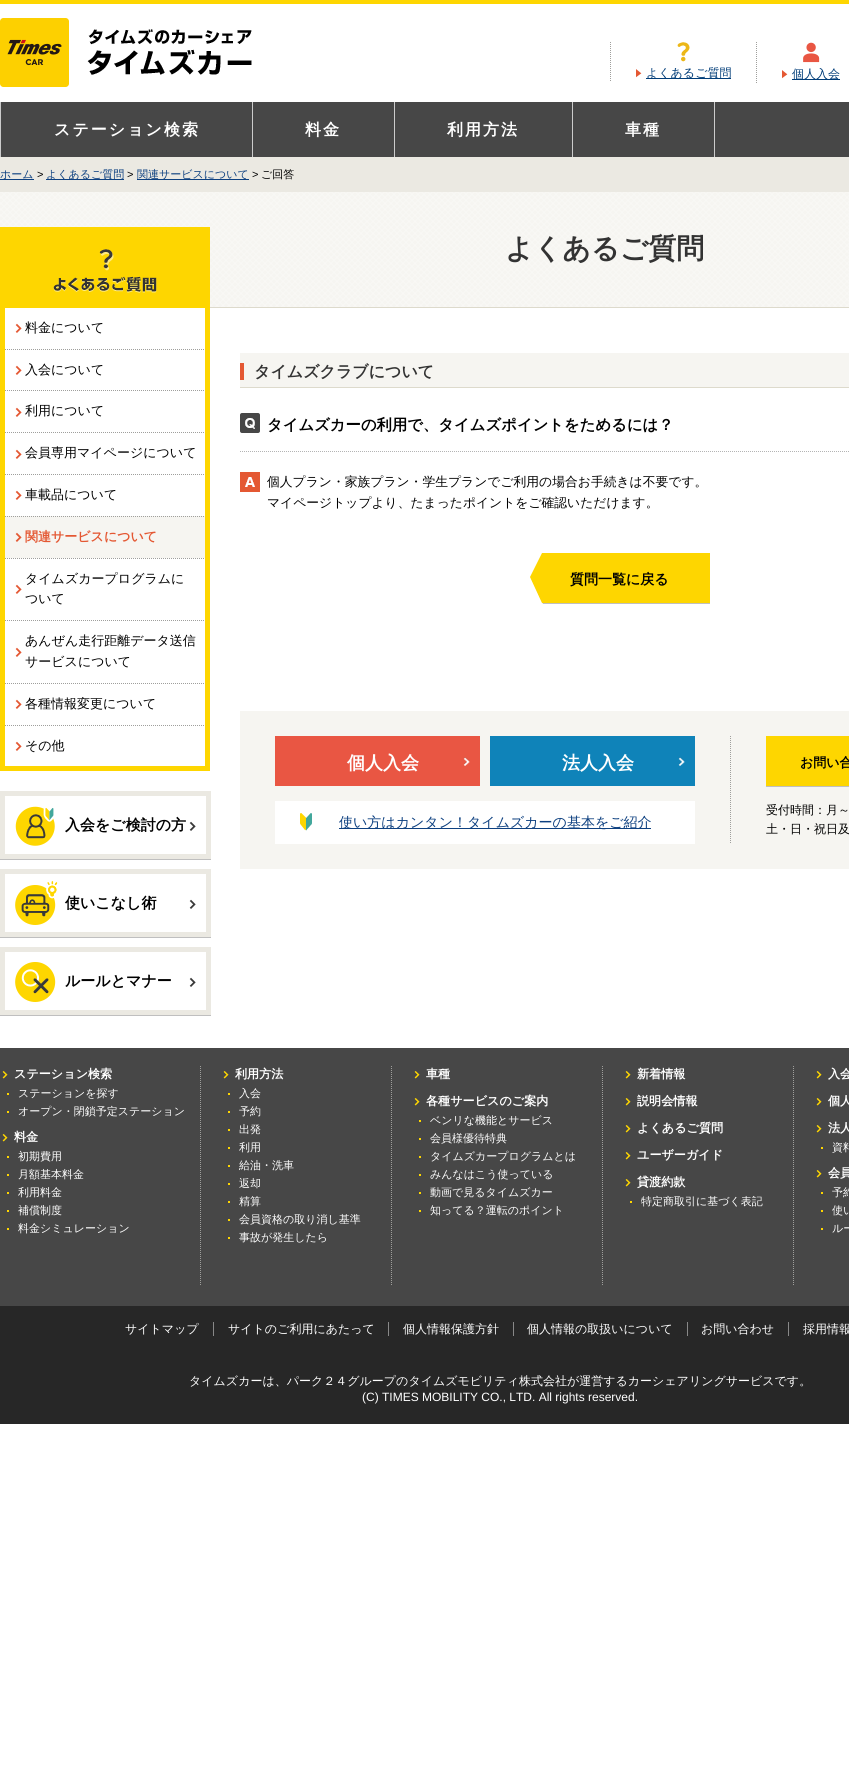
#include <cairo/cairo.h>
#include <math.h>
#include <stddef.h>


static void draw_spaced(cairo_t *cr, double x, double y, const char *s, double letter, double word) {
  cairo_move_to(cr, x, y);
  while (*s) {
    char ch[5] = {0};
    int n = 0;
    do ch[n++] = *s++; while ((*s & 0xC0) == 0x80);
    cairo_show_text(cr, ch);
    cairo_rel_move_to(cr, letter + word * (*ch == ' '), 0);
  }
}

static void draw_image(cairo_t *cr, const char *path, double x, double y, double w, double h) {
  cairo_surface_t *image = cairo_image_surface_create_from_png(path);
  cairo_save(cr);
  cairo_set_source_surface(cr, image, x, y);
  cairo_rectangle(cr, x, y, w, h);
  cairo_fill(cr);
  cairo_restore(cr);
  cairo_surface_destroy(image);
}

static void draw(cairo_t *cr) {
  cairo_set_source_rgb(cr, 1, 1, 1);
  cairo_paint(cr);
  cairo_set_source_rgb(cr, 254 / 255.0, 214 / 255.0, 0);
  cairo_rectangle(cr, 0, 0, 849, 4);
  cairo_fill(cr);
  draw_image(cr, "images/1.png", 0, 18, 252, 69);
  cairo_new_path(cr);
  cairo_move_to(cr, 610.5, 42);
  cairo_line_to(cr, 610.5, 82);
  cairo_set_source_rgb(cr, 159 / 255.0, 159 / 255.0, 156 / 255.0);
  cairo_set_line_width(cr, 1);
  cairo_set_dash(cr, (double[]){1, 1}, 2, 0);
  cairo_stroke(cr);
  draw_image(cr, "images/2.png", 677, 42, 13, 20);
  draw_image(cr, "images/3.png", 636, 69, 6, 9);
  cairo_set_source_rgb(cr, 0, 60 / 255.0, 120 / 255.0);
  cairo_rectangle(cr, 646, 78, 85, 1);
  cairo_fill(cr);
  cairo_new_path(cr);
  cairo_move_to(cr, 756.5, 42);
  cairo_line_to(cr, 756.5, 83);
  cairo_set_source_rgb(cr, 159 / 255.0, 159 / 255.0, 156 / 255.0);
  cairo_stroke(cr);
  draw_image(cr, "images/4.png", 803, 42, 17, 21);
  draw_image(cr, "images/3.png", 782, 70, 6, 9);
  cairo_set_source_rgb(cr, 0, 60 / 255.0, 120 / 255.0);
  cairo_rectangle(cr, 792, 79, 48, 1);
  cairo_fill(cr);
  cairo_set_source_rgb(cr, 71 / 255.0, 71 / 255.0, 71 / 255.0);
  cairo_rectangle(cr, 1, 102, 848, 55);
  cairo_fill(cr);
  cairo_set_source_rgb(cr, 204 / 255.0, 204 / 255.0, 204 / 255.0);
  cairo_rectangle(cr, 252, 102, 1, 55);
  cairo_fill(cr);
  cairo_rectangle(cr, 0, 102, 1, 55);
  cairo_fill(cr);
  cairo_rectangle(cr, 394, 102, 1, 55);
  cairo_fill(cr);
  cairo_rectangle(cr, 572, 102, 1, 55);
  cairo_fill(cr);
  cairo_rectangle(cr, 714, 102, 1, 55);
  cairo_fill(cr);
  cairo_set_source_rgb(cr, 235 / 255.0, 233 / 255.0, 226 / 255.0);
  cairo_rectangle(cr, 0, 157, 849, 35);
  cairo_fill(cr);
  cairo_set_source_rgb(cr, 13 / 255.0, 64 / 255.0, 128 / 255.0);
  cairo_rectangle(cr, 0, 179, 34, 1);
  cairo_fill(cr);
  cairo_rectangle(cr, 46, 179, 78, 1);
  cairo_fill(cr);
  cairo_rectangle(cr, 137, 179, 112, 1);
  cairo_fill(cr);
  draw_image(cr, "images/5.png", 0, 192, 849, 115);
  cairo_set_source_rgb(cr, 221 / 255.0, 218 / 255.0, 204 / 255.0);
  cairo_rectangle(cr, 210, 307, 639, 1);
  cairo_fill(cr);
  cairo_rectangle(cr, 2.5, 229.5, 205, 539);
  cairo_set_source_rgb(cr, 254 / 255.0, 214 / 255.0, 0);
  cairo_set_line_width(cr, 5);
  cairo_set_dash(cr, NULL, 0, 0);
  cairo_stroke(cr);
  draw_image(cr, "images/6.png", 5, 232, 200, 76);
  draw_image(cr, "images/7.png", 15, 323, 7, 10);
  cairo_new_path(cr);
  cairo_move_to(cr, 5, 349.5);
  cairo_line_to(cr, 205, 349.5);
  cairo_set_source_rgb(cr, 159 / 255.0, 159 / 255.0, 156 / 255.0);
  cairo_set_line_width(cr, 1);
  cairo_set_dash(cr, (double[]){1, 1}, 2, 0);
  cairo_stroke(cr);
  draw_image(cr, "images/7.png", 15, 365, 7, 10);
  cairo_new_path(cr);
  cairo_move_to(cr, 5, 390.5);
  cairo_line_to(cr, 205, 390.5);
  cairo_stroke(cr);
  draw_image(cr, "images/7.png", 15, 407, 7, 10);
  cairo_new_path(cr);
  cairo_move_to(cr, 5, 432.5);
  cairo_line_to(cr, 205, 432.5);
  cairo_stroke(cr);
  draw_image(cr, "images/7.png", 15, 449, 7, 10);
  cairo_new_path(cr);
  cairo_move_to(cr, 5, 474.5);
  cairo_line_to(cr, 205, 474.5);
  cairo_stroke(cr);
  draw_image(cr, "images/7.png", 15, 490, 7, 10);
  cairo_set_source_rgb(cr, 246 / 255.0, 245 / 255.0, 241 / 255.0);
  cairo_rectangle(cr, 5, 516, 200, 42);
  cairo_fill(cr);
  cairo_new_path(cr);
  cairo_move_to(cr, 5, 516.5);
  cairo_line_to(cr, 205, 516.5);
  cairo_set_source_rgb(cr, 159 / 255.0, 159 / 255.0, 156 / 255.0);
  cairo_stroke(cr);
  draw_image(cr, "images/8.png", 15, 532, 7, 10);
  cairo_new_path(cr);
  cairo_move_to(cr, 5, 558.5);
  cairo_line_to(cr, 205, 558.5);
  cairo_stroke(cr);
  draw_image(cr, "images/7.png", 15, 584, 7, 10);
  cairo_new_path(cr);
  cairo_move_to(cr, 5, 620.5);
  cairo_line_to(cr, 205, 620.5);
  cairo_stroke(cr);
  draw_image(cr, "images/7.png", 15, 647, 7, 10);
  cairo_new_path(cr);
  cairo_move_to(cr, 5, 683.5);
  cairo_line_to(cr, 205, 683.5);
  cairo_stroke(cr);
  draw_image(cr, "images/7.png", 15, 699, 7, 10);
  cairo_new_path(cr);
  cairo_move_to(cr, 5, 725.5);
  cairo_line_to(cr, 205, 725.5);
  cairo_stroke(cr);
  draw_image(cr, "images/7.png", 15, 741, 7, 10);
  cairo_set_source_rgb(cr, 191 / 255.0, 191 / 255.0, 191 / 255.0);
  cairo_rectangle(cr, 0, 859, 211, 1);
  cairo_fill(cr);
  cairo_rectangle(cr, 2.5, 793.5, 206, 63);
  cairo_set_source_rgb(cr, 235 / 255.0, 233 / 255.0, 226 / 255.0);
  cairo_set_line_width(cr, 5);
  cairo_set_dash(cr, NULL, 0, 0);
  cairo_stroke(cr);
  draw_image(cr, "images/9.png", 15, 806, 40, 40);
  draw_image(cr, "images/10.png", 189, 821, 7, 10);
  cairo_set_source_rgb(cr, 191 / 255.0, 191 / 255.0, 191 / 255.0);
  cairo_rectangle(cr, 0, 937, 211, 1);
  cairo_fill(cr);
  cairo_rectangle(cr, 2.5, 871.5, 206, 63);
  cairo_set_source_rgb(cr, 235 / 255.0, 233 / 255.0, 226 / 255.0);
  cairo_stroke(cr);
  draw_image(cr, "images/11.png", 15, 881, 43, 44);
  draw_image(cr, "images/10.png", 189, 899, 7, 10);
  cairo_set_source_rgb(cr, 191 / 255.0, 191 / 255.0, 191 / 255.0);
  cairo_rectangle(cr, 0, 1015, 211, 1);
  cairo_fill(cr);
  cairo_rectangle(cr, 2.5, 949.5, 206, 63);
  cairo_set_source_rgb(cr, 235 / 255.0, 233 / 255.0, 226 / 255.0);
  cairo_stroke(cr);
  draw_image(cr, "images/12.png", 15, 962, 41, 40);
  draw_image(cr, "images/10.png", 189, 977, 7, 10);
  cairo_set_source_rgb(cr, 246 / 255.0, 245 / 255.0, 241 / 255.0);
  cairo_rectangle(cr, 240, 353, 609, 34);
  cairo_fill(cr);
  cairo_set_source_rgb(cr, 221 / 255.0, 218 / 255.0, 204 / 255.0);
  cairo_rectangle(cr, 240, 387, 609, 1);
  cairo_fill(cr);
  cairo_set_source_rgb(cr, 228 / 255.0, 88 / 255.0, 51 / 255.0);
  cairo_rectangle(cr, 240, 363, 4, 17);
  cairo_fill(cr);
  draw_image(cr, "images/13.png", 240, 413, 20, 20);
  cairo_new_path(cr);
  cairo_move_to(cr, 240, 451.5);
  cairo_line_to(cr, 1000, 451.5);
  cairo_set_source_rgb(cr, 180 / 255.0, 180 / 255.0, 180 / 255.0);
  cairo_set_line_width(cr, 1);
  cairo_set_dash(cr, (double[]){1, 1}, 2, 0);
  cairo_stroke(cr);
  draw_image(cr, "images/14.png", 240, 472, 20, 20);
  draw_image(cr, "images/15.png", 530, 553, 180, 51);
  cairo_set_source_rgb(cr, 246 / 255.0, 245 / 255.0, 241 / 255.0);
  cairo_rectangle(cr, 240, 711, 609, 158);
  cairo_fill(cr);
  cairo_new_path(cr);
  cairo_move_to(cr, 730.5, 736);
  cairo_line_to(cr, 730.5, 844);
  cairo_set_source_rgb(cr, 159 / 255.0, 159 / 255.0, 156 / 255.0);
  cairo_stroke(cr);
  cairo_set_source_rgb(cr, 233 / 255.0, 86 / 255.0, 67 / 255.0);
  cairo_rectangle(cr, 275, 736, 205, 50);
  cairo_fill(cr);
  draw_image(cr, "images/16.png", 463, 757, 7, 9);
  cairo_set_source_rgb(cr, 15 / 255.0, 131 / 255.0, 185 / 255.0);
  cairo_rectangle(cr, 490, 736, 205, 50);
  cairo_fill(cr);
  draw_image(cr, "images/17.png", 678, 757, 7, 9);
  cairo_set_source_rgb(cr, 1, 1, 1);
  cairo_rectangle(cr, 275, 801, 420, 43);
  cairo_fill(cr);
  draw_image(cr, "images/18.png", 300, 813, 12, 18);
  cairo_set_source_rgb(cr, 13 / 255.0, 64 / 255.0, 128 / 255.0);
  cairo_rectangle(cr, 339, 828, 312, 1);
  cairo_fill(cr);
  cairo_set_source_rgb(cr, 191 / 255.0, 191 / 255.0, 191 / 255.0);
  cairo_rectangle(cr, 766, 786, 83, 1);
  cairo_fill(cr);
  cairo_set_source_rgb(cr, 254 / 255.0, 214 / 255.0, 0);
  cairo_rectangle(cr, 766, 736, 83, 50);
  cairo_fill(cr);
  cairo_set_source_rgb(cr, 71 / 255.0, 71 / 255.0, 71 / 255.0);
  cairo_rectangle(cr, 0, 1048, 849, 258);
  cairo_fill(cr);
  cairo_new_path(cr);
  cairo_move_to(cr, 200.5, 1066);
  cairo_line_to(cr, 200.5, 1286);
  cairo_set_source_rgb(cr, 159 / 255.0, 159 / 255.0, 156 / 255.0);
  cairo_stroke(cr);
  draw_image(cr, "images/19.png", 2, 1071, 6, 8);
  cairo_set_source_rgb(cr, 254 / 255.0, 214 / 255.0, 0);
  cairo_rectangle(cr, 7, 1093, 2, 2);
  cairo_fill(cr);
  cairo_rectangle(cr, 7, 1111, 2, 2);
  cairo_fill(cr);
  draw_image(cr, "images/19.png", 2, 1134, 6, 8);
  cairo_rectangle(cr, 7, 1156, 2, 2);
  cairo_fill(cr);
  cairo_rectangle(cr, 7, 1174, 2, 2);
  cairo_fill(cr);
  cairo_rectangle(cr, 7, 1192, 2, 2);
  cairo_fill(cr);
  cairo_rectangle(cr, 7, 1210, 2, 2);
  cairo_fill(cr);
  cairo_rectangle(cr, 7, 1228, 2, 2);
  cairo_fill(cr);
  cairo_new_path(cr);
  cairo_move_to(cr, 391.5, 1066);
  cairo_line_to(cr, 391.5, 1286);
  cairo_set_source_rgb(cr, 159 / 255.0, 159 / 255.0, 156 / 255.0);
  cairo_stroke(cr);
  draw_image(cr, "images/19.png", 223, 1071, 6, 8);
  cairo_set_source_rgb(cr, 254 / 255.0, 214 / 255.0, 0);
  cairo_rectangle(cr, 228, 1093, 2, 2);
  cairo_fill(cr);
  cairo_rectangle(cr, 228, 1111, 2, 2);
  cairo_fill(cr);
  cairo_rectangle(cr, 228, 1129, 2, 2);
  cairo_fill(cr);
  cairo_rectangle(cr, 228, 1147, 2, 2);
  cairo_fill(cr);
  cairo_rectangle(cr, 228, 1165, 2, 2);
  cairo_fill(cr);
  cairo_rectangle(cr, 228, 1183, 2, 2);
  cairo_fill(cr);
  cairo_rectangle(cr, 228, 1201, 2, 2);
  cairo_fill(cr);
  cairo_rectangle(cr, 228, 1219, 2, 2);
  cairo_fill(cr);
  cairo_rectangle(cr, 228, 1237, 2, 2);
  cairo_fill(cr);
  cairo_new_path(cr);
  cairo_move_to(cr, 602.5, 1066);
  cairo_line_to(cr, 602.5, 1286);
  cairo_set_source_rgb(cr, 159 / 255.0, 159 / 255.0, 156 / 255.0);
  cairo_stroke(cr);
  draw_image(cr, "images/19.png", 414, 1071, 6, 8);
  draw_image(cr, "images/19.png", 414, 1098, 6, 8);
  cairo_set_source_rgb(cr, 254 / 255.0, 214 / 255.0, 0);
  cairo_rectangle(cr, 419, 1120, 2, 2);
  cairo_fill(cr);
  cairo_rectangle(cr, 419, 1138, 2, 2);
  cairo_fill(cr);
  cairo_rectangle(cr, 419, 1156, 2, 2);
  cairo_fill(cr);
  cairo_rectangle(cr, 419, 1174, 2, 2);
  cairo_fill(cr);
  cairo_rectangle(cr, 419, 1192, 2, 2);
  cairo_fill(cr);
  cairo_rectangle(cr, 419, 1210, 2, 2);
  cairo_fill(cr);
  cairo_new_path(cr);
  cairo_move_to(cr, 793.5, 1066);
  cairo_line_to(cr, 793.5, 1286);
  cairo_set_source_rgb(cr, 159 / 255.0, 159 / 255.0, 156 / 255.0);
  cairo_stroke(cr);
  draw_image(cr, "images/19.png", 625, 1071, 6, 8);
  draw_image(cr, "images/19.png", 625, 1098, 6, 8);
  draw_image(cr, "images/19.png", 625, 1125, 6, 8);
  draw_image(cr, "images/19.png", 625, 1152, 6, 8);
  draw_image(cr, "images/19.png", 625, 1179, 6, 8);
  cairo_set_source_rgb(cr, 254 / 255.0, 214 / 255.0, 0);
  cairo_rectangle(cr, 630, 1201, 2, 2);
  cairo_fill(cr);
  draw_image(cr, "images/19.png", 816, 1071, 6, 8);
  draw_image(cr, "images/19.png", 816, 1098, 6, 8);
  draw_image(cr, "images/19.png", 816, 1125, 6, 8);
  cairo_rectangle(cr, 821, 1147, 2, 2);
  cairo_fill(cr);
  draw_image(cr, "images/19.png", 816, 1170, 6, 8);
  cairo_rectangle(cr, 821, 1192, 2, 2);
  cairo_fill(cr);
  cairo_rectangle(cr, 821, 1210, 2, 2);
  cairo_fill(cr);
  cairo_rectangle(cr, 821, 1228, 2, 2);
  cairo_fill(cr);
  cairo_set_source_rgb(cr, 39 / 255.0, 39 / 255.0, 39 / 255.0);
  cairo_rectangle(cr, 0, 1306, 849, 118);
  cairo_fill(cr);
  cairo_set_source_rgb(cr, 136 / 255.0, 136 / 255.0, 136 / 255.0);
  cairo_rectangle(cr, 213, 1322, 1, 14);
  cairo_fill(cr);
  cairo_rectangle(cr, 388, 1322, 1, 14);
  cairo_fill(cr);
  cairo_rectangle(cr, 513, 1322, 1, 14);
  cairo_fill(cr);
  cairo_rectangle(cr, 687, 1322, 1, 14);
  cairo_fill(cr);
  cairo_rectangle(cr, 788, 1322, 1, 14);
  cairo_fill(cr);
  cairo_select_font_face(cr, "WenQuanYi Zen Hei Medium", CAIRO_FONT_SLANT_NORMAL, CAIRO_FONT_WEIGHT_NORMAL);
  cairo_set_font_size(cr, 12);
  cairo_set_source_rgb(cr, 0, 60 / 255.0, 120 / 255.0);
  cairo_move_to(cr, 646, 77);
  cairo_show_text(cr, "よくあるご質問");
  cairo_move_to(cr, 792, 78);
  cairo_show_text(cr, "個人入会");
  cairo_select_font_face(cr, "WenQuanYi Zen Hei", CAIRO_FONT_SLANT_NORMAL, CAIRO_FONT_WEIGHT_BOLD);
  cairo_set_font_size(cr, 16);
  cairo_set_source_rgb(cr, 1, 1, 1);
  draw_spaced(cr, 54, 135, "ステーション検索", 2, 0);
  draw_spaced(cr, 305, 135, "料金", 2, 0);
  draw_spaced(cr, 447, 135, "利用方法", 2, 0);
  draw_spaced(cr, 625, 135, "車種", 2, 0);
  cairo_select_font_face(cr, "WenQuanYi Zen Hei Medium", CAIRO_FONT_SLANT_NORMAL, CAIRO_FONT_WEIGHT_NORMAL);
  cairo_set_font_size(cr, 11);
  cairo_set_source_rgb(cr, 13 / 255.0, 64 / 255.0, 128 / 255.0);
  cairo_move_to(cr, 0, 178);
  cairo_show_text(cr, "ホーム");
  cairo_select_font_face(cr, "Liberation Sans", CAIRO_FONT_SLANT_NORMAL, CAIRO_FONT_WEIGHT_NORMAL);
  cairo_set_source_rgb(cr, 0, 0, 0);
  cairo_move_to(cr, 37, 178);
  cairo_show_text(cr, ">");
  cairo_select_font_face(cr, "WenQuanYi Zen Hei Medium", CAIRO_FONT_SLANT_NORMAL, CAIRO_FONT_WEIGHT_NORMAL);
  cairo_set_source_rgb(cr, 13 / 255.0, 64 / 255.0, 128 / 255.0);
  cairo_move_to(cr, 46, 178);
  cairo_show_text(cr, "よくあるご質問");
  cairo_select_font_face(cr, "Liberation Sans", CAIRO_FONT_SLANT_NORMAL, CAIRO_FONT_WEIGHT_NORMAL);
  cairo_set_source_rgb(cr, 0, 0, 0);
  cairo_move_to(cr, 127, 178);
  cairo_show_text(cr, ">");
  cairo_select_font_face(cr, "WenQuanYi Zen Hei Medium", CAIRO_FONT_SLANT_NORMAL, CAIRO_FONT_WEIGHT_NORMAL);
  cairo_set_source_rgb(cr, 13 / 255.0, 64 / 255.0, 128 / 255.0);
  cairo_move_to(cr, 137, 178);
  cairo_show_text(cr, "関連サービスについて");
  cairo_select_font_face(cr, "Liberation Sans", CAIRO_FONT_SLANT_NORMAL, CAIRO_FONT_WEIGHT_NORMAL);
  cairo_set_source_rgb(cr, 0, 0, 0);
  cairo_move_to(cr, 252, 178);
  cairo_show_text(cr, ">");
  cairo_select_font_face(cr, "WenQuanYi Zen Hei Medium", CAIRO_FONT_SLANT_NORMAL, CAIRO_FONT_WEIGHT_NORMAL);
  cairo_move_to(cr, 261, 178);
  cairo_show_text(cr, "ご回答");
  cairo_select_font_face(cr, "WenQuanYi Zen Hei", CAIRO_FONT_SLANT_NORMAL, CAIRO_FONT_WEIGHT_BOLD);
  cairo_set_font_size(cr, 28);
  cairo_set_source_rgb(cr, 51 / 255.0, 51 / 255.0, 51 / 255.0);
  cairo_move_to(cr, 505, 258);
  cairo_show_text(cr, "よくあるご質問");
  cairo_select_font_face(cr, "WenQuanYi Zen Hei Medium", CAIRO_FONT_SLANT_NORMAL, CAIRO_FONT_WEIGHT_NORMAL);
  cairo_set_font_size(cr, 13);
  cairo_set_source_rgb(cr, 0, 0, 0);
  cairo_move_to(cr, 25, 332);
  cairo_show_text(cr, "料金について");
  cairo_move_to(cr, 25, 374);
  cairo_show_text(cr, "入会について");
  cairo_move_to(cr, 25, 415);
  cairo_show_text(cr, "利用について");
  cairo_move_to(cr, 25, 457);
  cairo_show_text(cr, "会員専用マイページについて");
  cairo_move_to(cr, 25, 499);
  cairo_show_text(cr, "車載品について");
  cairo_select_font_face(cr, "WenQuanYi Zen Hei", CAIRO_FONT_SLANT_NORMAL, CAIRO_FONT_WEIGHT_BOLD);
  cairo_set_source_rgb(cr, 228 / 255.0, 88 / 255.0, 51 / 255.0);
  cairo_move_to(cr, 25, 541);
  cairo_show_text(cr, "関連サービスについて");
  cairo_select_font_face(cr, "WenQuanYi Zen Hei Medium", CAIRO_FONT_SLANT_NORMAL, CAIRO_FONT_WEIGHT_NORMAL);
  cairo_set_source_rgb(cr, 0, 0, 0);
  cairo_move_to(cr, 25, 583);
  cairo_show_text(cr, "タイムズカープログラムに");
  cairo_move_to(cr, 25, 603);
  cairo_show_text(cr, "ついて");
  cairo_move_to(cr, 25, 645);
  cairo_show_text(cr, "あんぜん走行距離データ送信");
  cairo_move_to(cr, 25, 666);
  cairo_show_text(cr, "サービスについて");
  cairo_move_to(cr, 25, 708);
  cairo_show_text(cr, "各種情報変更について");
  cairo_move_to(cr, 25, 750);
  cairo_show_text(cr, "その他");
  cairo_select_font_face(cr, "WenQuanYi Zen Hei", CAIRO_FONT_SLANT_NORMAL, CAIRO_FONT_WEIGHT_BOLD);
  cairo_set_font_size(cr, 15);
  cairo_move_to(cr, 65, 830);
  cairo_show_text(cr, "入会をご検討の方");
  cairo_move_to(cr, 65, 908);
  cairo_show_text(cr, "使いこなし術");
  cairo_move_to(cr, 65, 986);
  cairo_show_text(cr, "ルールとマナー");
  cairo_set_font_size(cr, 16);
  cairo_set_source_rgb(cr, 51 / 255.0, 51 / 255.0, 51 / 255.0);
  cairo_move_to(cr, 254, 377);
  cairo_show_text(cr, "タイムズクラブについて");
  cairo_set_font_size(cr, 15.35);
  cairo_set_source_rgb(cr, 0, 0, 0);
  cairo_move_to(cr, 267, 430);
  cairo_show_text(cr, "タイムズカーの利用で、タイムズポイントをためるには？");
  cairo_select_font_face(cr, "WenQuanYi Zen Hei Medium", CAIRO_FONT_SLANT_NORMAL, CAIRO_FONT_WEIGHT_NORMAL);
  cairo_set_font_size(cr, 12.8);
  cairo_move_to(cr, 267, 486);
  cairo_show_text(cr, "個人プラン・家族プラン・学生プランでご利用の場合お手続きは不要です。");
  cairo_move_to(cr, 267, 507);
  cairo_show_text(cr, "マイページトップより、たまったポイントをご確認いただけます。");
  cairo_select_font_face(cr, "WenQuanYi Zen Hei", CAIRO_FONT_SLANT_NORMAL, CAIRO_FONT_WEIGHT_BOLD);
  cairo_set_font_size(cr, 14);
  cairo_move_to(cr, 570, 584);
  cairo_show_text(cr, "質問一覧に戻る");
  cairo_set_font_size(cr, 18);
  cairo_set_source_rgb(cr, 1, 1, 1);
  cairo_move_to(cr, 347, 769);
  cairo_show_text(cr, "個人入会");
  cairo_move_to(cr, 562, 769);
  cairo_show_text(cr, "法人入会");
  cairo_select_font_face(cr, "WenQuanYi Zen Hei Medium", CAIRO_FONT_SLANT_NORMAL, CAIRO_FONT_WEIGHT_NORMAL);
  cairo_set_font_size(cr, 14);
  cairo_set_source_rgb(cr, 13 / 255.0, 64 / 255.0, 128 / 255.0);
  cairo_move_to(cr, 339, 827);
  cairo_show_text(cr, "使い方はカンタン！タイムズカーの基本をご紹介");
  cairo_select_font_face(cr, "WenQuanYi Zen Hei", CAIRO_FONT_SLANT_NORMAL, CAIRO_FONT_WEIGHT_BOLD);
  cairo_set_font_size(cr, 13);
  cairo_set_source_rgb(cr, 0, 0, 0);
  cairo_move_to(cr, 800, 767);
  cairo_show_text(cr, "お問い合");
  cairo_select_font_face(cr, "WenQuanYi Zen Hei Medium", CAIRO_FONT_SLANT_NORMAL, CAIRO_FONT_WEIGHT_NORMAL);
  cairo_set_font_size(cr, 12);
  cairo_move_to(cr, 766, 814);
  cairo_show_text(cr, "受付時間：月～");
  cairo_move_to(cr, 766, 833);
  cairo_show_text(cr, "土・日・祝日及");
  cairo_select_font_face(cr, "WenQuanYi Zen Hei", CAIRO_FONT_SLANT_NORMAL, CAIRO_FONT_WEIGHT_BOLD);
  cairo_set_font_size(cr, 12.1);
  cairo_set_source_rgb(cr, 1, 1, 1);
  cairo_move_to(cr, 14, 1078);
  cairo_show_text(cr, "ステーション検索");
  cairo_select_font_face(cr, "WenQuanYi Zen Hei Medium", CAIRO_FONT_SLANT_NORMAL, CAIRO_FONT_WEIGHT_NORMAL);
  cairo_set_font_size(cr, 11);
  cairo_move_to(cr, 18, 1097);
  cairo_show_text(cr, "ステーションを探す");
  cairo_move_to(cr, 18, 1115);
  cairo_show_text(cr, "オープン・閉鎖予定ステーション");
  cairo_select_font_face(cr, "WenQuanYi Zen Hei", CAIRO_FONT_SLANT_NORMAL, CAIRO_FONT_WEIGHT_BOLD);
  cairo_set_font_size(cr, 12.1);
  cairo_move_to(cr, 14, 1141);
  cairo_show_text(cr, "料金");
  cairo_select_font_face(cr, "WenQuanYi Zen Hei Medium", CAIRO_FONT_SLANT_NORMAL, CAIRO_FONT_WEIGHT_NORMAL);
  cairo_set_font_size(cr, 11);
  cairo_move_to(cr, 18, 1160);
  cairo_show_text(cr, "初期費用");
  cairo_move_to(cr, 18, 1178);
  cairo_show_text(cr, "月額基本料金");
  cairo_move_to(cr, 18, 1196);
  cairo_show_text(cr, "利用料金");
  cairo_move_to(cr, 18, 1214);
  cairo_show_text(cr, "補償制度");
  cairo_move_to(cr, 18, 1232);
  cairo_show_text(cr, "料金シミュレーション");
  cairo_select_font_face(cr, "WenQuanYi Zen Hei", CAIRO_FONT_SLANT_NORMAL, CAIRO_FONT_WEIGHT_BOLD);
  cairo_set_font_size(cr, 12.1);
  cairo_move_to(cr, 235, 1078);
  cairo_show_text(cr, "利用方法");
  cairo_select_font_face(cr, "WenQuanYi Zen Hei Medium", CAIRO_FONT_SLANT_NORMAL, CAIRO_FONT_WEIGHT_NORMAL);
  cairo_set_font_size(cr, 11);
  cairo_move_to(cr, 239, 1097);
  cairo_show_text(cr, "入会");
  cairo_move_to(cr, 239, 1115);
  cairo_show_text(cr, "予約");
  cairo_move_to(cr, 239, 1133);
  cairo_show_text(cr, "出発");
  cairo_move_to(cr, 239, 1151);
  cairo_show_text(cr, "利用");
  cairo_move_to(cr, 239, 1169);
  cairo_show_text(cr, "給油・洗車");
  cairo_move_to(cr, 239, 1187);
  cairo_show_text(cr, "返却");
  cairo_move_to(cr, 239, 1205);
  cairo_show_text(cr, "精算");
  cairo_move_to(cr, 239, 1223);
  cairo_show_text(cr, "会員資格の取り消し基準");
  cairo_move_to(cr, 239, 1241);
  cairo_show_text(cr, "事故が発生したら");
  cairo_select_font_face(cr, "WenQuanYi Zen Hei", CAIRO_FONT_SLANT_NORMAL, CAIRO_FONT_WEIGHT_BOLD);
  cairo_set_font_size(cr, 12.1);
  cairo_move_to(cr, 426, 1078);
  cairo_show_text(cr, "車種");
  cairo_move_to(cr, 426, 1105);
  cairo_show_text(cr, "各種サービスのご案内");
  cairo_select_font_face(cr, "WenQuanYi Zen Hei Medium", CAIRO_FONT_SLANT_NORMAL, CAIRO_FONT_WEIGHT_NORMAL);
  cairo_set_font_size(cr, 11);
  cairo_move_to(cr, 430, 1124);
  cairo_show_text(cr, "ベンリな機能とサービス");
  cairo_move_to(cr, 430, 1142);
  cairo_show_text(cr, "会員様優待特典");
  cairo_move_to(cr, 430, 1160);
  cairo_show_text(cr, "タイムズカープログラムとは");
  cairo_move_to(cr, 430, 1178);
  cairo_show_text(cr, "みんなはこう使っている");
  cairo_move_to(cr, 430, 1196);
  cairo_show_text(cr, "動画で見るタイムズカー");
  cairo_move_to(cr, 430, 1214);
  cairo_show_text(cr, "知ってる？運転のポイント");
  cairo_select_font_face(cr, "WenQuanYi Zen Hei", CAIRO_FONT_SLANT_NORMAL, CAIRO_FONT_WEIGHT_BOLD);
  cairo_set_font_size(cr, 12.1);
  cairo_move_to(cr, 637, 1078);
  cairo_show_text(cr, "新着情報");
  cairo_move_to(cr, 637, 1105);
  cairo_show_text(cr, "説明会情報");
  cairo_move_to(cr, 637, 1132);
  cairo_show_text(cr, "よくあるご質問");
  cairo_move_to(cr, 637, 1159);
  cairo_show_text(cr, "ユーザーガイド");
  cairo_move_to(cr, 637, 1186);
  cairo_show_text(cr, "貸渡約款");
  cairo_select_font_face(cr, "WenQuanYi Zen Hei Medium", CAIRO_FONT_SLANT_NORMAL, CAIRO_FONT_WEIGHT_NORMAL);
  cairo_set_font_size(cr, 11);
  cairo_move_to(cr, 641, 1205);
  cairo_show_text(cr, "特定商取引に基づく表記");
  cairo_select_font_face(cr, "WenQuanYi Zen Hei", CAIRO_FONT_SLANT_NORMAL, CAIRO_FONT_WEIGHT_BOLD);
  cairo_set_font_size(cr, 12.1);
  cairo_move_to(cr, 828, 1078);
  cairo_show_text(cr, "入会");
  cairo_move_to(cr, 828, 1105);
  cairo_show_text(cr, "個人");
  cairo_move_to(cr, 828, 1132);
  cairo_show_text(cr, "法人");
  cairo_select_font_face(cr, "WenQuanYi Zen Hei Medium", CAIRO_FONT_SLANT_NORMAL, CAIRO_FONT_WEIGHT_NORMAL);
  cairo_set_font_size(cr, 11);
  cairo_move_to(cr, 832, 1151);
  cairo_show_text(cr, "資料");
  cairo_select_font_face(cr, "WenQuanYi Zen Hei", CAIRO_FONT_SLANT_NORMAL, CAIRO_FONT_WEIGHT_BOLD);
  cairo_set_font_size(cr, 12.1);
  cairo_move_to(cr, 828, 1177);
  cairo_show_text(cr, "会員");
  cairo_select_font_face(cr, "WenQuanYi Zen Hei Medium", CAIRO_FONT_SLANT_NORMAL, CAIRO_FONT_WEIGHT_NORMAL);
  cairo_set_font_size(cr, 11);
  cairo_move_to(cr, 832, 1196);
  cairo_show_text(cr, "予約");
  cairo_move_to(cr, 832, 1214);
  cairo_show_text(cr, "使い");
  cairo_move_to(cr, 832, 1232);
  cairo_show_text(cr, "ルー");
  cairo_set_font_size(cr, 12);
  cairo_move_to(cr, 125, 1333);
  cairo_show_text(cr, "サイトマップ");
  cairo_move_to(cr, 228, 1333);
  cairo_show_text(cr, "サイトのご利用にあたって");
  cairo_move_to(cr, 403, 1333);
  cairo_show_text(cr, "個人情報保護方針");
  cairo_move_to(cr, 527, 1333);
  cairo_show_text(cr, "個人情報の取扱いについて");
  cairo_move_to(cr, 701, 1333);
  cairo_show_text(cr, "お問い合わせ");
  cairo_move_to(cr, 803, 1333);
  cairo_show_text(cr, "採用情報");
  cairo_move_to(cr, 189, 1385);
  cairo_show_text(cr, "タイムズカーは、パーク２４グループのタイムズモビリティ株式会社が運営するカーシェアリングサービスです。");
  cairo_select_font_face(cr, "Liberation Sans", CAIRO_FONT_SLANT_NORMAL, CAIRO_FONT_WEIGHT_NORMAL);
  cairo_move_to(cr, 362, 1401);
  cairo_show_text(cr, "(C) TIMES MOBILITY CO., LTD. All rights reserved.");
}

int main(void) {
  cairo_surface_t *surface = cairo_image_surface_create(CAIRO_FORMAT_RGB24, 849, 1784);
  cairo_t *cr = cairo_create(surface);
  cairo_font_options_t *options = cairo_font_options_create();
  cairo_font_options_set_hint_metrics(options, CAIRO_HINT_METRICS_OFF);
  cairo_font_options_set_hint_style(options, CAIRO_HINT_STYLE_NONE);
  cairo_set_font_options(cr, options);
  cairo_set_miter_limit(cr, 4);
  draw(cr);
  cairo_surface_write_to_png(surface, "out.png");
  cairo_font_options_destroy(options);
  cairo_destroy(cr);
  cairo_surface_destroy(surface);
  return 0;
}
